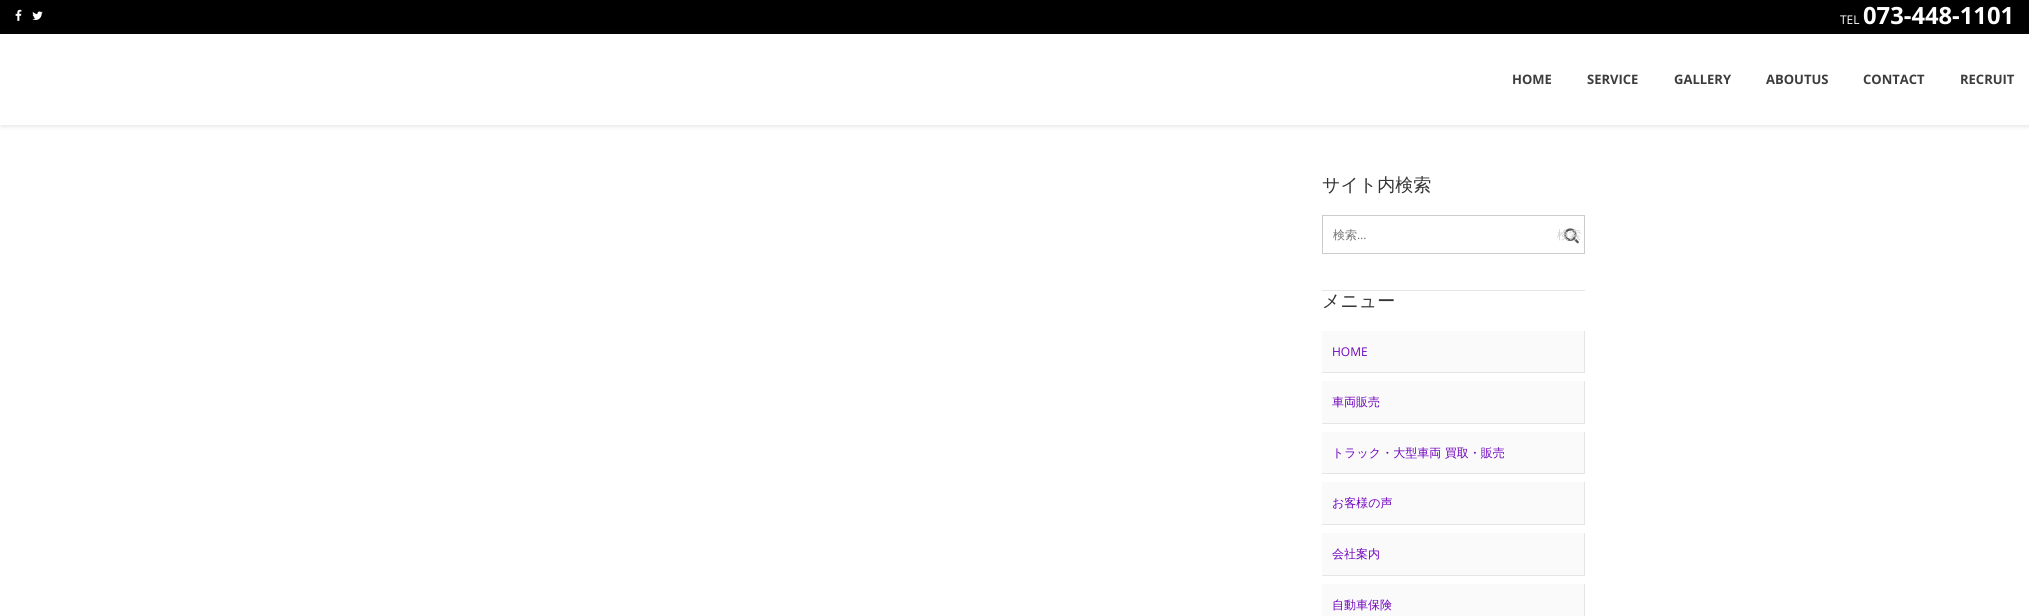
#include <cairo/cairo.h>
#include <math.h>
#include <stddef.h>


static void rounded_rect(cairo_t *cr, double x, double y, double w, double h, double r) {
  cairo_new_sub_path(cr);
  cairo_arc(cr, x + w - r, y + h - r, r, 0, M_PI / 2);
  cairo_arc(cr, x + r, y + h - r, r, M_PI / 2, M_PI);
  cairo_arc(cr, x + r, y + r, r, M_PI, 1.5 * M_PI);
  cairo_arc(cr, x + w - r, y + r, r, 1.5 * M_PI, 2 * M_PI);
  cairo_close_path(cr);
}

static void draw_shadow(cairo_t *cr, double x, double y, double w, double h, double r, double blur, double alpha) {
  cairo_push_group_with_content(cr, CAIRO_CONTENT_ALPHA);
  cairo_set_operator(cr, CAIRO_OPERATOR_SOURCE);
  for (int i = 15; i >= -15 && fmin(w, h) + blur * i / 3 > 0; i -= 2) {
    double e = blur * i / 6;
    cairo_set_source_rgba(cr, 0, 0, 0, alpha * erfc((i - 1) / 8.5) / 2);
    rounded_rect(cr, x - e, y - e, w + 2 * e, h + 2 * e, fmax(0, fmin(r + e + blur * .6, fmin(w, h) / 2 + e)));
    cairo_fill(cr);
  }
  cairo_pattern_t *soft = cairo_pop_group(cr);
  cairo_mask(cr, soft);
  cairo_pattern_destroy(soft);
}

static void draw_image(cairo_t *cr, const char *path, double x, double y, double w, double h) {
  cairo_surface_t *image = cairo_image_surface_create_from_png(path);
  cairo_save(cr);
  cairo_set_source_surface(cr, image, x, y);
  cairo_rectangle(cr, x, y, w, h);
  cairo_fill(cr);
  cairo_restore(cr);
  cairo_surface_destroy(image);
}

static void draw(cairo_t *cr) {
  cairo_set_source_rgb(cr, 1, 1, 1);
  cairo_paint(cr);
  cairo_set_source_rgb(cr, 0, 0, 0);
  cairo_rectangle(cr, 0, 0, 2029, 34);
  cairo_fill(cr);
  draw_image(cr, "images/1.png", 15, 9, 7, 12);
  draw_image(cr, "images/2.png", 32, 11, 11, 9);
  cairo_save(cr);
  cairo_set_fill_rule(cr, CAIRO_FILL_RULE_EVEN_ODD);
  cairo_new_path(cr);
  cairo_move_to(cr, 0, 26);
  cairo_line_to(cr, 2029, 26);
  cairo_line_to(cr, 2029, 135);
  cairo_line_to(cr, 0, 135);
  cairo_close_path(cr);
  cairo_move_to(cr, 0, 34);
  cairo_line_to(cr, 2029, 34);
  cairo_line_to(cr, 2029, 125);
  cairo_line_to(cr, 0, 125);
  cairo_close_path(cr);
  cairo_clip(cr);
  cairo_set_source_rgb(cr, 100 / 255.0, 100 / 255.0, 100 / 255.0);
  draw_shadow(cr, 1, 35, 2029, 91, 0, 2.5, 0.2);
  cairo_restore(cr);
  cairo_rectangle(cr, 1322.5, 215.5, 262, 38);
  cairo_set_source_rgb(cr, 204 / 255.0, 204 / 255.0, 204 / 255.0);
  cairo_set_line_width(cr, 1);
  cairo_stroke(cr);
  draw_image(cr, "images/3.png", 1564, 228, 15, 16);
  cairo_set_source_rgb(cr, 229 / 255.0, 229 / 255.0, 229 / 255.0);
  cairo_rectangle(cr, 1322, 290, 263, 1);
  cairo_fill(cr);
  cairo_set_source_rgb(cr, 250 / 255.0, 250 / 255.0, 250 / 255.0);
  cairo_rectangle(cr, 1322, 331, 262, 41);
  cairo_fill(cr);
  cairo_set_source_rgb(cr, 229 / 255.0, 229 / 255.0, 229 / 255.0);
  cairo_rectangle(cr, 1584, 331, 1, 42);
  cairo_fill(cr);
  cairo_rectangle(cr, 1322, 372, 263, 1);
  cairo_fill(cr);
  cairo_set_source_rgb(cr, 250 / 255.0, 250 / 255.0, 250 / 255.0);
  cairo_rectangle(cr, 1322, 381, 262, 42);
  cairo_fill(cr);
  cairo_set_source_rgb(cr, 229 / 255.0, 229 / 255.0, 229 / 255.0);
  cairo_rectangle(cr, 1584, 381, 1, 43);
  cairo_fill(cr);
  cairo_rectangle(cr, 1322, 423, 263, 1);
  cairo_fill(cr);
  cairo_set_source_rgb(cr, 250 / 255.0, 250 / 255.0, 250 / 255.0);
  cairo_rectangle(cr, 1322, 432, 262, 41);
  cairo_fill(cr);
  cairo_set_source_rgb(cr, 229 / 255.0, 229 / 255.0, 229 / 255.0);
  cairo_rectangle(cr, 1584, 432, 1, 42);
  cairo_fill(cr);
  cairo_rectangle(cr, 1322, 473, 263, 1);
  cairo_fill(cr);
  cairo_set_source_rgb(cr, 250 / 255.0, 250 / 255.0, 250 / 255.0);
  cairo_rectangle(cr, 1322, 482, 262, 42);
  cairo_fill(cr);
  cairo_set_source_rgb(cr, 229 / 255.0, 229 / 255.0, 229 / 255.0);
  cairo_rectangle(cr, 1584, 482, 1, 43);
  cairo_fill(cr);
  cairo_rectangle(cr, 1322, 524, 263, 1);
  cairo_fill(cr);
  cairo_set_source_rgb(cr, 250 / 255.0, 250 / 255.0, 250 / 255.0);
  cairo_rectangle(cr, 1322, 533, 262, 42);
  cairo_fill(cr);
  cairo_set_source_rgb(cr, 229 / 255.0, 229 / 255.0, 229 / 255.0);
  cairo_rectangle(cr, 1584, 533, 1, 43);
  cairo_fill(cr);
  cairo_rectangle(cr, 1322, 575, 263, 1);
  cairo_fill(cr);
  cairo_set_source_rgb(cr, 250 / 255.0, 250 / 255.0, 250 / 255.0);
  cairo_rectangle(cr, 1322, 584, 262, 32);
  cairo_fill(cr);
  cairo_set_source_rgb(cr, 229 / 255.0, 229 / 255.0, 229 / 255.0);
  cairo_rectangle(cr, 1584, 584, 1, 32);
  cairo_fill(cr);
  cairo_select_font_face(cr, "Open Sans", CAIRO_FONT_SLANT_NORMAL, CAIRO_FONT_WEIGHT_NORMAL);
  cairo_set_font_size(cr, 12);
  cairo_set_source_rgb(cr, 1, 1, 1);
  cairo_move_to(cr, 1840, 24);
  cairo_show_text(cr, "TEL");
  cairo_select_font_face(cr, "Open Sans", CAIRO_FONT_SLANT_NORMAL, CAIRO_FONT_WEIGHT_BOLD);
  cairo_set_font_size(cr, 23.75);
  cairo_move_to(cr, 1863, 24);
  cairo_show_text(cr, "073-448-1101");
  cairo_set_font_size(cr, 13);
  cairo_set_source_rgb(cr, 61 / 255.0, 61 / 255.0, 61 / 255.0);
  cairo_move_to(cr, 1512, 84);
  cairo_show_text(cr, "HOME");
  cairo_move_to(cr, 1587, 84);
  cairo_show_text(cr, "SERVICE");
  cairo_move_to(cr, 1674, 84);
  cairo_show_text(cr, "GALLERY");
  cairo_move_to(cr, 1766, 84);
  cairo_show_text(cr, "ABOUTUS");
  cairo_move_to(cr, 1863, 84);
  cairo_show_text(cr, "CONTACT");
  cairo_move_to(cr, 1960, 84);
  cairo_show_text(cr, "RECRUIT");
  cairo_select_font_face(cr, "WenQuanYi Zen Hei Medium", CAIRO_FONT_SLANT_NORMAL, CAIRO_FONT_WEIGHT_NORMAL);
  cairo_set_font_size(cr, 18);
  cairo_set_source_rgb(cr, 51 / 255.0, 51 / 255.0, 51 / 255.0);
  cairo_move_to(cr, 1322, 191);
  cairo_show_text(cr, "サイト内検索");
  cairo_set_font_size(cr, 12);
  cairo_set_source_rgb(cr, 117 / 255.0, 117 / 255.0, 117 / 255.0);
  cairo_move_to(cr, 1333, 239);
  cairo_show_text(cr, "検索");
  cairo_select_font_face(cr, "Open Sans", CAIRO_FONT_SLANT_NORMAL, CAIRO_FONT_WEIGHT_NORMAL);
  cairo_move_to(cr, 1357, 239);
  cairo_show_text(cr, "…");
  cairo_select_font_face(cr, "WenQuanYi Zen Hei Medium", CAIRO_FONT_SLANT_NORMAL, CAIRO_FONT_WEIGHT_NORMAL);
  cairo_set_source_rgb(cr, 208 / 255.0, 208 / 255.0, 208 / 255.0);
  cairo_move_to(cr, 1557, 239);
  cairo_show_text(cr, "検索");
  cairo_set_font_size(cr, 18);
  cairo_set_source_rgb(cr, 51 / 255.0, 51 / 255.0, 51 / 255.0);
  cairo_move_to(cr, 1322, 307);
  cairo_show_text(cr, "メニュー");
  cairo_select_font_face(cr, "Open Sans", CAIRO_FONT_SLANT_NORMAL, CAIRO_FONT_WEIGHT_NORMAL);
  cairo_set_font_size(cr, 12);
  cairo_set_source_rgb(cr, 113 / 255.0, 3 / 255.0, 191 / 255.0);
  cairo_move_to(cr, 1332, 356);
  cairo_show_text(cr, "HOME");
  cairo_select_font_face(cr, "WenQuanYi Zen Hei Medium", CAIRO_FONT_SLANT_NORMAL, CAIRO_FONT_WEIGHT_NORMAL);
  cairo_move_to(cr, 1332, 406);
  cairo_show_text(cr, "車両販売");
  cairo_move_to(cr, 1332, 457);
  cairo_show_text(cr, "トラック・大型車両 買取・販売");
  cairo_move_to(cr, 1332, 507);
  cairo_show_text(cr, "お客様の声");
  cairo_move_to(cr, 1332, 558);
  cairo_show_text(cr, "会社案内");
  cairo_move_to(cr, 1332, 609);
  cairo_show_text(cr, "自動車保険");
}

int main(void) {
  cairo_surface_t *surface = cairo_image_surface_create(CAIRO_FORMAT_RGB24, 2029, 616);
  cairo_t *cr = cairo_create(surface);
  cairo_font_options_t *options = cairo_font_options_create();
  cairo_font_options_set_hint_metrics(options, CAIRO_HINT_METRICS_OFF);
  cairo_font_options_set_hint_style(options, CAIRO_HINT_STYLE_NONE);
  cairo_set_font_options(cr, options);
  cairo_set_miter_limit(cr, 4);
  draw(cr);
  cairo_surface_write_to_png(surface, "out.png");
  cairo_font_options_destroy(options);
  cairo_destroy(cr);
  cairo_surface_destroy(surface);
  return 0;
}
